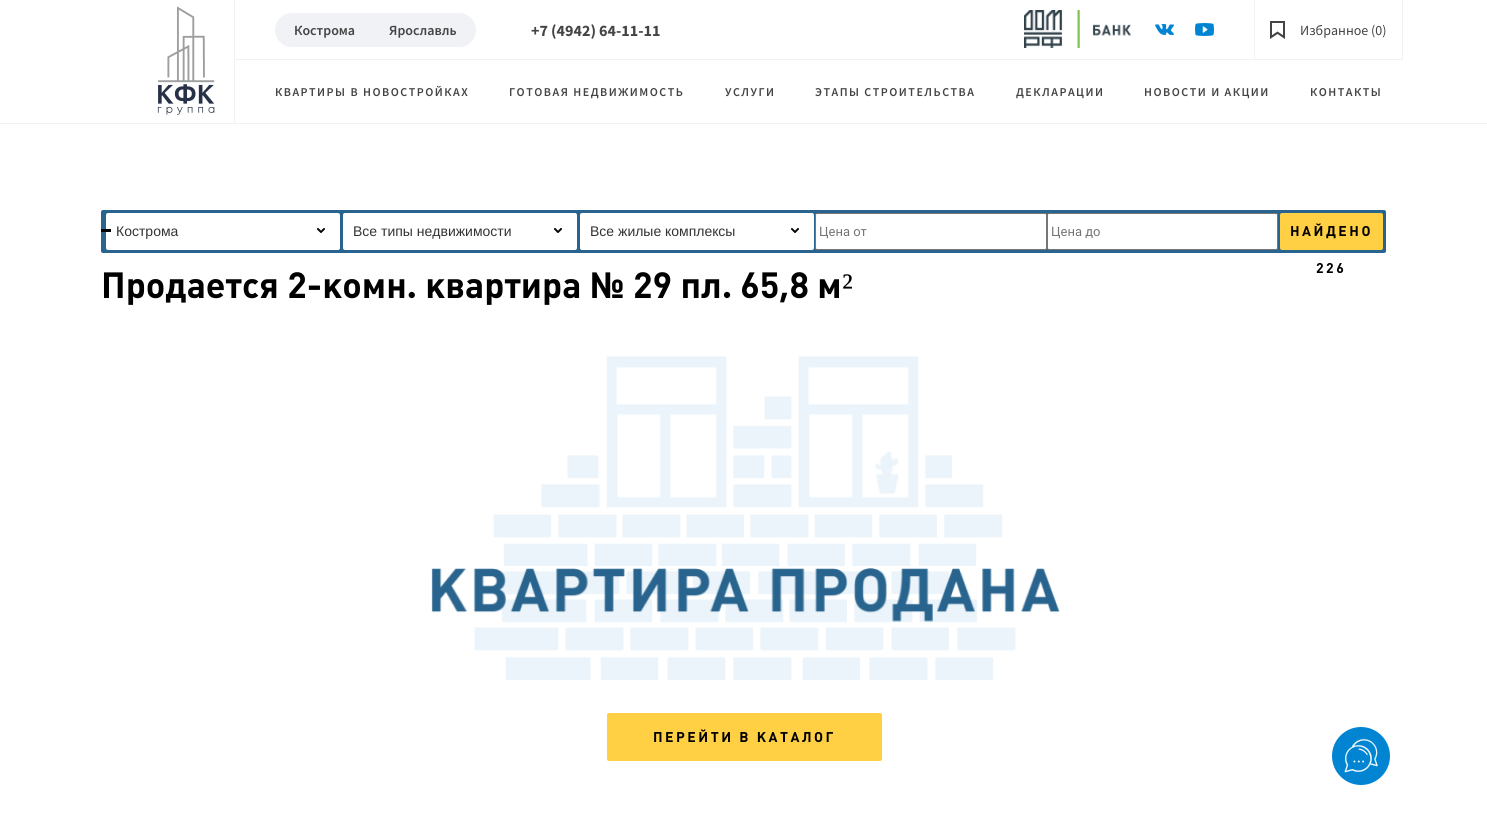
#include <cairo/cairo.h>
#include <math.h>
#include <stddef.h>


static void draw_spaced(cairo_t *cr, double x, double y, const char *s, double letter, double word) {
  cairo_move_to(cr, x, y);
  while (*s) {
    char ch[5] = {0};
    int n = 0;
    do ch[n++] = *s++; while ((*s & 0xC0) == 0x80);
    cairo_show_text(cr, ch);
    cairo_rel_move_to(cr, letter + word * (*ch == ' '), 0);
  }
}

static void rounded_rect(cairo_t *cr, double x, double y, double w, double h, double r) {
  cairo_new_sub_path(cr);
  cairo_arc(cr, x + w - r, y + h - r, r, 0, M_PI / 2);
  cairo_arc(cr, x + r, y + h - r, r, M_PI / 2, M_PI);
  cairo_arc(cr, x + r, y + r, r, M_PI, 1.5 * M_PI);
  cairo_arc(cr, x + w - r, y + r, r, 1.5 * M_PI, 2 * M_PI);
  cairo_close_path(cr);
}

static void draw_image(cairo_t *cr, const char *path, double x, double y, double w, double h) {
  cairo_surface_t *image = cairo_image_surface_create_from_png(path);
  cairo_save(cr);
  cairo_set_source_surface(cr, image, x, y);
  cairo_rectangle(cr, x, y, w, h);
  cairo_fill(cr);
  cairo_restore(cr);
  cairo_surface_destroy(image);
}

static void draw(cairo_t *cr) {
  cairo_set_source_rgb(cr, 1, 1, 1);
  cairo_paint(cr);
  cairo_set_source_rgb(cr, 241 / 255.0, 242 / 255.0, 246 / 255.0);
  cairo_rectangle(cr, 0, 123, 1487, 1);
  cairo_fill(cr);
  cairo_rectangle(cr, 234, 0, 1, 123);
  cairo_fill(cr);
  draw_image(cr, "images/1.png", 157, 6, 58, 109);
  cairo_rectangle(cr, 235, 59, 1168, 1);
  cairo_fill(cr);
  rounded_rect(cr, 275, 13, 201, 34, 17);
  cairo_fill(cr);
  cairo_rectangle(cr, 1402, 0, 1, 59);
  cairo_fill(cr);
  draw_image(cr, "images/2.png", 1024, 10, 107, 38);
  draw_image(cr, "images/3.png", 1155, 24, 19, 11);
  draw_image(cr, "images/4.png", 1195, 23, 19, 13);
  cairo_rectangle(cr, 1254, 0, 1, 59);
  cairo_fill(cr);
  draw_image(cr, "images/5.png", 1270, 21, 15, 18);
  cairo_set_source_rgb(cr, 40 / 255.0, 100 / 255.0, 142 / 255.0);
  rounded_rect(cr, 101, 210, 1285, 43, 2);
  cairo_fill(cr);
  cairo_set_source_rgb(cr, 1, 1, 1);
  rounded_rect(cr, 106, 213, 234, 37, 2);
  cairo_fill(cr);
  cairo_set_source_rgb(cr, 0, 0, 0);
  cairo_rectangle(cr, 101, 229, 10, 3);
  cairo_fill(cr);
  draw_image(cr, "images/6.png", 317, 228, 8, 5);
  cairo_set_source_rgb(cr, 1, 1, 1);
  rounded_rect(cr, 343, 213, 234, 37, 2);
  cairo_fill(cr);
  draw_image(cr, "images/6.png", 554, 228, 8, 5);
  rounded_rect(cr, 580, 213, 234, 37, 2);
  cairo_fill(cr);
  draw_image(cr, "images/6.png", 791, 228, 8, 5);
  rounded_rect(cr, 815.5, 213.5, 231, 36, 1.5);
  cairo_fill_preserve(cr);
  cairo_set_source_rgb(cr, 118 / 255.0, 118 / 255.0, 118 / 255.0);
  cairo_set_line_width(cr, 1);
  cairo_stroke(cr);
  cairo_set_source_rgb(cr, 1, 1, 1);
  rounded_rect(cr, 1047.5, 213.5, 230, 36, 1.5);
  cairo_fill_preserve(cr);
  cairo_set_source_rgb(cr, 118 / 255.0, 118 / 255.0, 118 / 255.0);
  cairo_stroke(cr);
  cairo_set_source_rgb(cr, 1, 208 / 255.0, 68 / 255.0);
  rounded_rect(cr, 1280, 213, 103, 37, 2);
  cairo_fill(cr);
  draw_image(cr, "images/7.png", 431, 356, 629, 324);
  rounded_rect(cr, 607, 713, 275, 48, 2);
  cairo_fill(cr);
  cairo_set_source_rgb(cr, 1 / 255.0, 133 / 255.0, 211 / 255.0);
  cairo_arc(cr, 1361, 756, 29, 0, 2 * M_PI);
  cairo_fill(cr);
  draw_image(cr, "images/8.png", 1344, 739, 34, 34);
  cairo_select_font_face(cr, "Source Sans Pro SemiBold", CAIRO_FONT_SLANT_NORMAL, CAIRO_FONT_WEIGHT_NORMAL);
  cairo_set_font_size(cr, 14);
  cairo_set_source_rgb(cr, 68 / 255.0, 68 / 255.0, 68 / 255.0);
  cairo_move_to(cr, 294, 35);
  cairo_show_text(cr, "Кострома");
  cairo_move_to(cr, 389, 35);
  cairo_show_text(cr, "Ярославль");
  cairo_select_font_face(cr, "Source Sans Pro", CAIRO_FONT_SLANT_NORMAL, CAIRO_FONT_WEIGHT_BOLD);
  cairo_set_font_size(cr, 16);
  cairo_move_to(cr, 531, 36);
  cairo_show_text(cr, "+7 (4942) 64-11-11");
  cairo_select_font_face(cr, "Source Sans Pro", CAIRO_FONT_SLANT_NORMAL, CAIRO_FONT_WEIGHT_NORMAL);
  cairo_set_font_size(cr, 14);
  cairo_move_to(cr, 1300, 35);
  cairo_show_text(cr, "Избранное (0)");
  cairo_select_font_face(cr, "Source Sans Pro SemiBold", CAIRO_FONT_SLANT_NORMAL, CAIRO_FONT_WEIGHT_NORMAL);
  cairo_set_font_size(cr, 12);
  draw_spaced(cr, 275, 96, "КВАРТИРЫ В НОВОСТРОЙКАХ", 1.5, 0);
  draw_spaced(cr, 509, 96, "ГОТОВАЯ НЕДВИЖИМОСТЬ", 1.5, 0);
  draw_spaced(cr, 725, 96, "УСЛУГИ", 1.5, 0);
  draw_spaced(cr, 815, 96, "ЭТАПЫ СТРОИТЕЛЬСТВА", 1.5, 0);
  draw_spaced(cr, 1016, 96, "ДЕКЛАРАЦИИ", 1.5, 0);
  draw_spaced(cr, 1144, 96, "НОВОСТИ И АКЦИИ", 1.5, 0);
  draw_spaced(cr, 1310, 96, "КОНТАКТЫ", 1.5, 0);
  cairo_select_font_face(cr, "Liberation Sans", CAIRO_FONT_SLANT_NORMAL, CAIRO_FONT_WEIGHT_NORMAL);
  cairo_set_font_size(cr, 14);
  cairo_set_source_rgb(cr, 51 / 255.0, 51 / 255.0, 51 / 255.0);
  cairo_move_to(cr, 116, 236);
  cairo_show_text(cr, "Кострома");
  cairo_move_to(cr, 353, 236);
  cairo_show_text(cr, "Все типы недвижимости");
  cairo_move_to(cr, 590, 236);
  cairo_show_text(cr, "Все жилые комплексы");
  cairo_select_font_face(cr, "Roboto", CAIRO_FONT_SLANT_NORMAL, CAIRO_FONT_WEIGHT_NORMAL);
  cairo_set_font_size(cr, 13);
  cairo_set_source_rgb(cr, 117 / 255.0, 117 / 255.0, 117 / 255.0);
  cairo_move_to(cr, 819, 236);
  cairo_show_text(cr, "Цена от");
  cairo_move_to(cr, 1051, 236);
  cairo_show_text(cr, "Цена до");
  cairo_select_font_face(cr, "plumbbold", CAIRO_FONT_SLANT_NORMAL, CAIRO_FONT_WEIGHT_BOLD);
  cairo_set_font_size(cr, 14);
  cairo_set_source_rgb(cr, 0, 0, 0);
  draw_spaced(cr, 1290, 236, "НАЙДЕНО", 2.5, 0);
  draw_spaced(cr, 1316, 273, "226", 2.5, 0);
  cairo_set_font_size(cr, 36);
  cairo_move_to(cr, 101, 298);
  cairo_show_text(cr, "Продается 2-комн. квартира № 29 пл. 65,8 м");
  cairo_select_font_face(cr, "Liberation Serif", CAIRO_FONT_SLANT_NORMAL, CAIRO_FONT_WEIGHT_NORMAL);
  cairo_move_to(cr, 842, 298);
  cairo_show_text(cr, "²");
  cairo_select_font_face(cr, "plumbbold", CAIRO_FONT_SLANT_NORMAL, CAIRO_FONT_WEIGHT_BOLD);
  cairo_set_font_size(cr, 14);
  draw_spaced(cr, 653, 742, "ПЕРЕЙТИ В КАТАЛОГ", 2.5, 0);
}

int main(void) {
  cairo_surface_t *surface = cairo_image_surface_create(CAIRO_FORMAT_RGB24, 1487, 832);
  cairo_t *cr = cairo_create(surface);
  cairo_font_options_t *options = cairo_font_options_create();
  cairo_font_options_set_hint_metrics(options, CAIRO_HINT_METRICS_OFF);
  cairo_font_options_set_hint_style(options, CAIRO_HINT_STYLE_NONE);
  cairo_set_font_options(cr, options);
  cairo_set_miter_limit(cr, 4);
  draw(cr);
  cairo_surface_write_to_png(surface, "out.png");
  cairo_font_options_destroy(options);
  cairo_destroy(cr);
  cairo_surface_destroy(surface);
  return 0;
}
